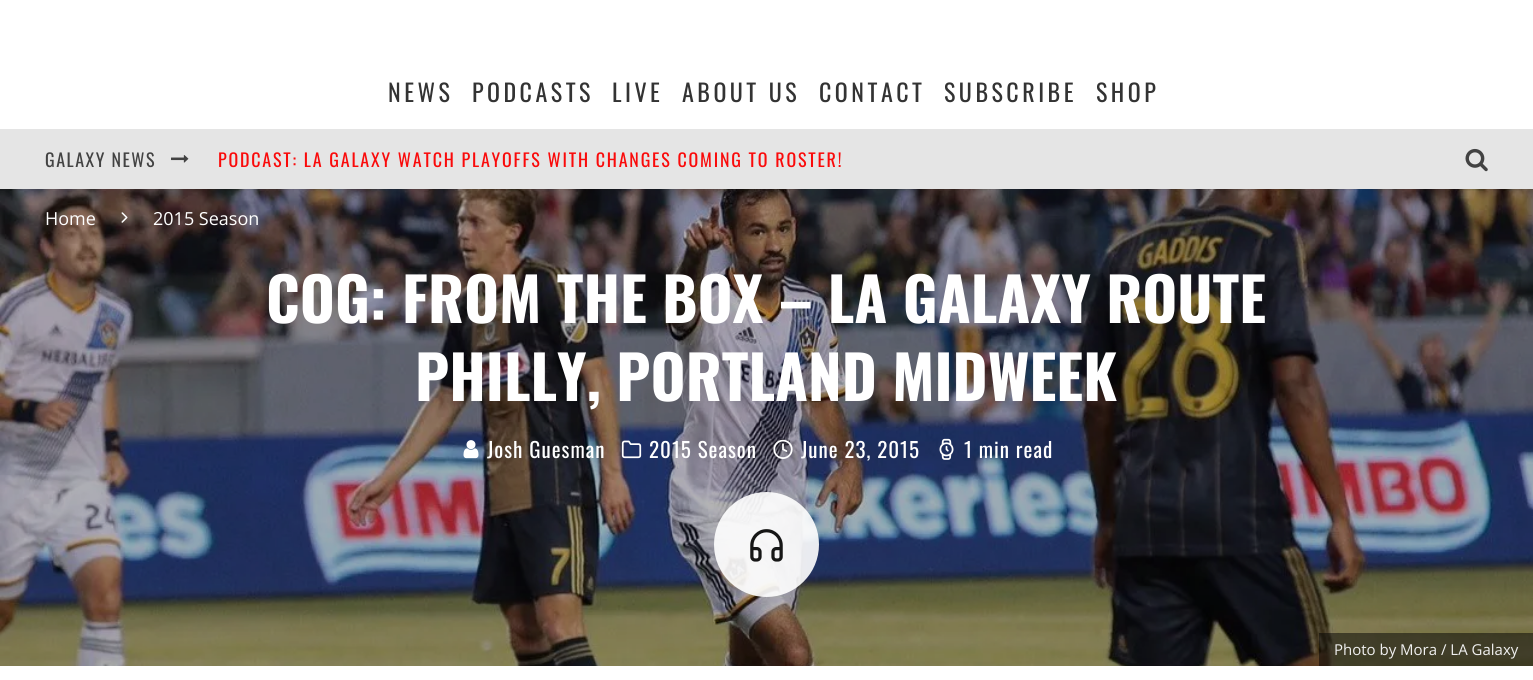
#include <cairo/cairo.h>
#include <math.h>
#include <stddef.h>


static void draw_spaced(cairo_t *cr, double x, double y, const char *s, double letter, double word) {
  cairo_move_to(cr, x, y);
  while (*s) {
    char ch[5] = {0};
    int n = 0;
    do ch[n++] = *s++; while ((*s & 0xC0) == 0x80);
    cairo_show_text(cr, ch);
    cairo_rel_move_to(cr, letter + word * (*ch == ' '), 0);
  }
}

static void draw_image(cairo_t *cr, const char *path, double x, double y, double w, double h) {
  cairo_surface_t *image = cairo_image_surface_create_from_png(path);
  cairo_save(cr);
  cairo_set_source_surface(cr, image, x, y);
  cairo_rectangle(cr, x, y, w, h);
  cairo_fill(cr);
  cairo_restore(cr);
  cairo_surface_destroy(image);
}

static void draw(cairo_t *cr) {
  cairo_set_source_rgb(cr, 1, 1, 1);
  cairo_paint(cr);
  cairo_set_source_rgb(cr, 229 / 255.0, 229 / 255.0, 229 / 255.0);
  cairo_rectangle(cr, 0, 129, 1533, 60);
  cairo_fill(cr);
  draw_image(cr, "images/1.png", 171, 155, 18, 8);
  draw_image(cr, "images/2.png", 1465, 148, 23, 24);
  draw_image(cr, "images/4.png", 0, 189, 1533, 477);
  draw_image(cr, "images/3.png", 121, 212, 7, 11);
  draw_image(cr, "images/5.png", 463, 440, 16, 19);
  draw_image(cr, "images/6.png", 621, 440, 21, 19);
  draw_image(cr, "images/7.png", 773, 439, 20, 20);
  draw_image(cr, "images/8.png", 939, 438, 15, 22);
  cairo_set_source_rgba(cr, 1, 1, 1, 0.9);
  cairo_arc(cr, 766.5, 544.5, 52.5, 0, 2 * M_PI);
  cairo_fill(cr);
  draw_image(cr, "images/9.png", 750, 529, 33, 33);
  cairo_set_source_rgba(cr, 0, 0, 0, 0.5);
  cairo_rectangle(cr, 1319, 633, 214, 33);
  cairo_fill(cr);
  cairo_select_font_face(cr, "Oswald", CAIRO_FONT_SLANT_NORMAL, CAIRO_FONT_WEIGHT_NORMAL);
  cairo_set_font_size(cr, 24);
  cairo_set_source_rgb(cr, 51 / 255.0, 51 / 255.0, 51 / 255.0);
  draw_spaced(cr, 388, 102, "NEWS", 3.5, 0);
  draw_spaced(cr, 472, 102, "PODCASTS", 3.5, 0);
  draw_spaced(cr, 612, 102, "LIVE", 3.5, 0);
  draw_spaced(cr, 682, 102, "ABOUT US", 3.5, 0);
  draw_spaced(cr, 819, 102, "CONTACT", 3.5, 0);
  draw_spaced(cr, 944, 102, "SUBSCRIBE", 3.5, 0);
  draw_spaced(cr, 1096, 102, "SHOP", 3.5, 0);
  cairo_set_font_size(cr, 18);
  cairo_set_source_rgb(cr, 66 / 255.0, 66 / 255.0, 66 / 255.0);
  draw_spaced(cr, 45, 167, "GALAXY NEWS", 1.5, 0);
  cairo_set_source_rgb(cr, 250 / 255.0, 10 / 255.0, 10 / 255.0);
  draw_spaced(cr, 218, 167, "PODCAST: LA GALAXY WATCH PLAYOFFS WITH CHANGES COMING TO ROSTER!", 1.8, 0);
  cairo_select_font_face(cr, "Open Sans", CAIRO_FONT_SLANT_NORMAL, CAIRO_FONT_WEIGHT_NORMAL);
  cairo_set_source_rgb(cr, 1, 1, 1);
  cairo_move_to(cr, 45, 225);
  cairo_show_text(cr, "Home");
  cairo_move_to(cr, 153, 225);
  cairo_show_text(cr, "2015 Season");
  cairo_select_font_face(cr, "Oswald", CAIRO_FONT_SLANT_NORMAL, CAIRO_FONT_WEIGHT_BOLD);
  cairo_set_font_size(cr, 60);
  cairo_move_to(cr, 266, 323);
  cairo_show_text(cr, "COG: FROM THE BOX – LA GALAXY ROUTE");
  cairo_move_to(cr, 415, 401);
  cairo_show_text(cr, "PHILLY, PORTLAND MIDWEEK");
  cairo_select_font_face(cr, "Oswald", CAIRO_FONT_SLANT_NORMAL, CAIRO_FONT_WEIGHT_NORMAL);
  cairo_set_font_size(cr, 21);
  draw_spaced(cr, 487, 458, "Josh Guesman", 1, 0);
  draw_spaced(cr, 649, 458, "2015 Season", 1, 0);
  draw_spaced(cr, 801, 458, "June 23, 2015", 1, 0);
  draw_spaced(cr, 964, 458, "1 min read", 1, 0);
  cairo_select_font_face(cr, "Open Sans", CAIRO_FONT_SLANT_NORMAL, CAIRO_FONT_WEIGHT_NORMAL);
  cairo_set_font_size(cr, 15);
  cairo_set_source_rgb(cr, 240 / 255.0, 240 / 255.0, 240 / 255.0);
  cairo_move_to(cr, 1334, 655);
  cairo_show_text(cr, "Photo by Mora / LA Galaxy");
}

int main(void) {
  cairo_surface_t *surface = cairo_image_surface_create(CAIRO_FORMAT_RGB24, 1533, 680);
  cairo_t *cr = cairo_create(surface);
  cairo_font_options_t *options = cairo_font_options_create();
  cairo_font_options_set_hint_metrics(options, CAIRO_HINT_METRICS_OFF);
  cairo_font_options_set_hint_style(options, CAIRO_HINT_STYLE_NONE);
  cairo_set_font_options(cr, options);
  cairo_set_miter_limit(cr, 4);
  draw(cr);
  cairo_surface_write_to_png(surface, "out.png");
  cairo_font_options_destroy(options);
  cairo_destroy(cr);
  cairo_surface_destroy(surface);
  return 0;
}
